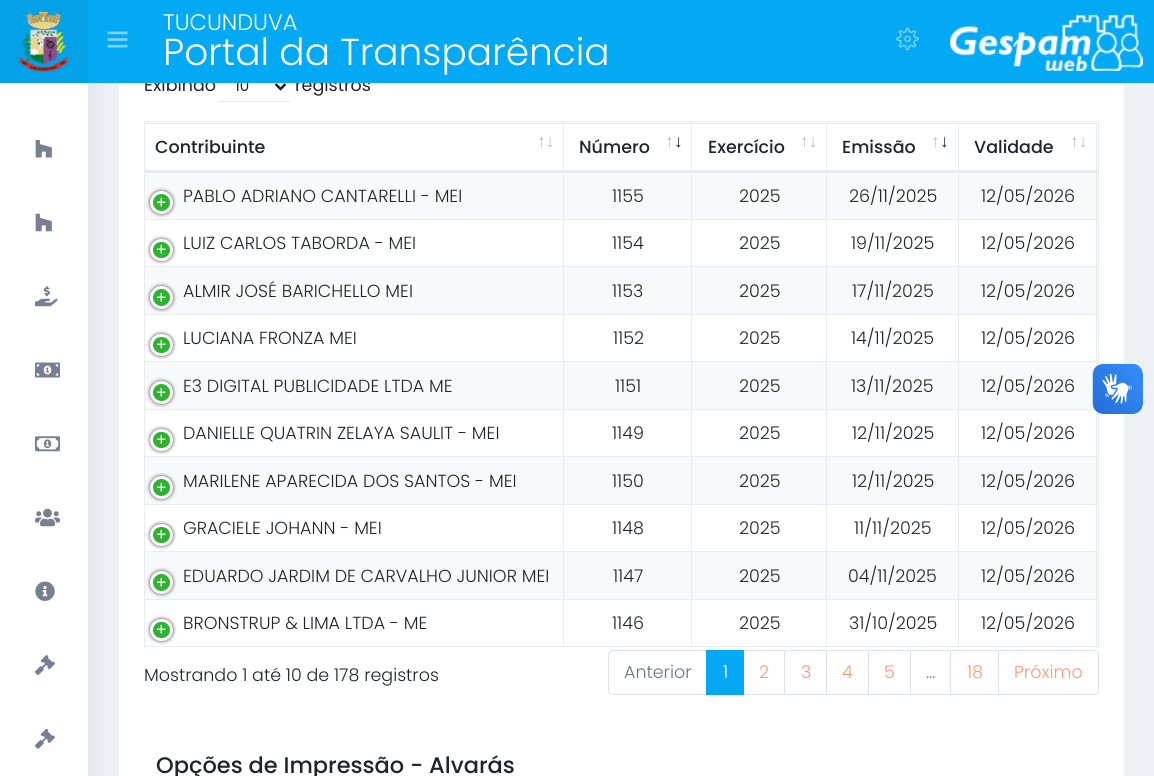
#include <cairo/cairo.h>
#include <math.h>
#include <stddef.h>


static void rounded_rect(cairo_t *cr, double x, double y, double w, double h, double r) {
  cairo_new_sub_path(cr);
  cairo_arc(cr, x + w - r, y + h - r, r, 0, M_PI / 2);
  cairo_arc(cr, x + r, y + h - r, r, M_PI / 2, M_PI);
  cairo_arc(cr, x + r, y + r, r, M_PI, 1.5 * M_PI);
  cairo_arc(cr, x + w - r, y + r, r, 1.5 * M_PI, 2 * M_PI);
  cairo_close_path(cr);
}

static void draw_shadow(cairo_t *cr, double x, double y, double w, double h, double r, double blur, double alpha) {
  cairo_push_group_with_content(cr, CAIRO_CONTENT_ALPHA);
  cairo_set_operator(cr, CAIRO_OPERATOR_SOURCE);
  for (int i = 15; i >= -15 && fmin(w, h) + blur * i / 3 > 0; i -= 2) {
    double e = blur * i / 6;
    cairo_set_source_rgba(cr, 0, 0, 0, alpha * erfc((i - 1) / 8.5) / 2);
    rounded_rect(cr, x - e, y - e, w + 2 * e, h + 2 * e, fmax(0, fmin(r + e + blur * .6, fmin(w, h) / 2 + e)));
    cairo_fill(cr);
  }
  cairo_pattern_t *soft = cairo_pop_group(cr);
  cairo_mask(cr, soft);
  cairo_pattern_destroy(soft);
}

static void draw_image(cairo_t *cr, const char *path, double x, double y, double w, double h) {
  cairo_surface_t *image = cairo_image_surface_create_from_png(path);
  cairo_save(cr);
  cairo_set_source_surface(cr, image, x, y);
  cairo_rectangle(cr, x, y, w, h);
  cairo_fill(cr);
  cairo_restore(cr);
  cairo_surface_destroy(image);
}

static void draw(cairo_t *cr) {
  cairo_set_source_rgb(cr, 237 / 255.0, 241 / 255.0, 245 / 255.0);
  cairo_paint(cr);
  cairo_set_source_rgb(cr, 1, 1, 1);
  cairo_rectangle(cr, 119, 83, 1005, 693);
  cairo_fill(cr);
  cairo_set_source_rgb(cr, 0, 0, 0);
  draw_shadow(cr, 1, 0, 88, 776, 0, 12.5, 0.08);
  cairo_set_source_rgb(cr, 1, 1, 1);
  cairo_rectangle(cr, 0, 83, 88, 693);
  cairo_fill(cr);
  draw_image(cr, "images/1.png", 35, 140, 17, 18);
  draw_image(cr, "images/2.png", 35, 213, 17, 19);
  draw_image(cr, "images/3.png", 35, 286, 23, 21);
  draw_image(cr, "images/4.png", 35, 362, 25, 16);
  draw_image(cr, "images/5.png", 35, 436, 25, 16);
  draw_image(cr, "images/6.png", 35, 508, 25, 19);
  draw_image(cr, "images/7.png", 35, 581, 20, 20);
  draw_image(cr, "images/8.png", 35, 655, 20, 20);
  draw_image(cr, "images/9.png", 35, 728, 20, 21);
  cairo_set_source_rgb(cr, 3 / 255.0, 161 / 255.0, 231 / 255.0);
  cairo_rectangle(cr, 0, 0, 88, 83);
  cairo_fill(cr);
  draw_image(cr, "images/10.png", 18, 12, 52, 60);
  cairo_set_source_rgb(cr, 233 / 255.0, 236 / 255.0, 239 / 255.0);
  cairo_rectangle(cr, 220, 101, 70, 1);
  cairo_fill(cr);
  cairo_new_path(cr);
  cairo_move_to(cr, 275.5, 84);
  cairo_line_to(cr, 280.5, 89);
  cairo_line_to(cr, 285.5, 84);
  cairo_set_source_rgb(cr, 33 / 255.0, 37 / 255.0, 41 / 255.0);
  cairo_set_line_width(cr, 2.5);
  cairo_stroke(cr);
  cairo_set_source_rgb(cr, 233 / 255.0, 236 / 255.0, 239 / 255.0);
  cairo_rectangle(cr, 144, 121, 955, 1);
  cairo_fill(cr);
  cairo_rectangle(cr, 1098, 121, 1, 527);
  cairo_fill(cr);
  cairo_rectangle(cr, 144, 121, 1, 52);
  cairo_fill(cr);
  cairo_rectangle(cr, 145, 123, 953, 1);
  cairo_fill(cr);
  cairo_rectangle(cr, 563, 123, 1, 50);
  cairo_fill(cr);
  cairo_rectangle(cr, 145, 170, 419, 3);
  cairo_fill(cr);
  cairo_rectangle(cr, 691, 123, 1, 50);
  cairo_fill(cr);
  cairo_rectangle(cr, 564, 170, 129, 3);
  cairo_fill(cr);
  cairo_rectangle(cr, 826, 123, 1, 50);
  cairo_fill(cr);
  cairo_rectangle(cr, 693, 170, 135, 3);
  cairo_fill(cr);
  cairo_rectangle(cr, 958, 123, 1, 50);
  cairo_fill(cr);
  cairo_rectangle(cr, 828, 170, 131, 3);
  cairo_fill(cr);
  cairo_rectangle(cr, 1096, 123, 1, 50);
  cairo_fill(cr);
  cairo_rectangle(cr, 959, 170, 139, 3);
  cairo_fill(cr);
  cairo_rectangle(cr, 144, 646, 955, 1);
  cairo_fill(cr);
  cairo_rectangle(cr, 144, 173, 1, 475);
  cairo_fill(cr);
  cairo_set_source_rgb(cr, 248 / 255.0, 249 / 255.0, 250 / 255.0);
  cairo_rectangle(cr, 145, 173, 953, 46);
  cairo_fill(cr);
  cairo_set_source_rgb(cr, 233 / 255.0, 236 / 255.0, 239 / 255.0);
  cairo_rectangle(cr, 563, 173, 1, 46);
  cairo_fill(cr);
  cairo_set_source_rgb(cr, 68 / 255.0, 68 / 255.0, 68 / 255.0);
  draw_shadow(cr, 150, 191, 23, 23, 11.5, 2, 1);
  cairo_set_source_rgb(cr, 49 / 255.0, 177 / 255.0, 49 / 255.0);
  cairo_arc(cr, 161.5, 202.5, 10, 0, 2 * M_PI);
  cairo_fill_preserve(cr);
  cairo_set_source_rgb(cr, 1, 1, 1);
  cairo_set_line_width(cr, 3);
  cairo_stroke(cr);
  cairo_set_source_rgb(cr, 233 / 255.0, 236 / 255.0, 239 / 255.0);
  cairo_rectangle(cr, 691, 173, 1, 46);
  cairo_fill(cr);
  cairo_rectangle(cr, 826, 173, 1, 46);
  cairo_fill(cr);
  cairo_rectangle(cr, 958, 173, 1, 46);
  cairo_fill(cr);
  cairo_rectangle(cr, 1096, 173, 1, 46);
  cairo_fill(cr);
  cairo_rectangle(cr, 145, 219, 419, 1);
  cairo_fill(cr);
  cairo_rectangle(cr, 563, 219, 1, 47);
  cairo_fill(cr);
  cairo_set_source_rgb(cr, 248 / 255.0, 249 / 255.0, 250 / 255.0);
  cairo_rectangle(cr, 145, 267, 953, 47);
  cairo_fill(cr);
  cairo_set_source_rgb(cr, 68 / 255.0, 68 / 255.0, 68 / 255.0);
  draw_shadow(cr, 150, 239, 23, 22, 11, 2, 1);
  cairo_set_source_rgb(cr, 49 / 255.0, 177 / 255.0, 49 / 255.0);
  rounded_rect(cr, 151.5, 240.5, 20, 19, 9.5);
  cairo_fill_preserve(cr);
  cairo_set_source_rgb(cr, 1, 1, 1);
  cairo_stroke(cr);
  cairo_set_source_rgb(cr, 233 / 255.0, 236 / 255.0, 239 / 255.0);
  cairo_rectangle(cr, 564, 219, 534, 1);
  cairo_fill(cr);
  cairo_rectangle(cr, 691, 219, 1, 47);
  cairo_fill(cr);
  cairo_rectangle(cr, 826, 219, 1, 47);
  cairo_fill(cr);
  cairo_rectangle(cr, 958, 219, 1, 47);
  cairo_fill(cr);
  cairo_rectangle(cr, 1096, 219, 1, 47);
  cairo_fill(cr);
  cairo_rectangle(cr, 145, 266, 419, 1);
  cairo_fill(cr);
  cairo_rectangle(cr, 563, 266, 1, 48);
  cairo_fill(cr);
  cairo_set_source_rgb(cr, 68 / 255.0, 68 / 255.0, 68 / 255.0);
  draw_shadow(cr, 150, 286, 23, 23, 11.5, 2, 1);
  cairo_set_source_rgb(cr, 49 / 255.0, 177 / 255.0, 49 / 255.0);
  cairo_arc(cr, 161.5, 297.5, 10, 0, 2 * M_PI);
  cairo_fill_preserve(cr);
  cairo_set_source_rgb(cr, 1, 1, 1);
  cairo_stroke(cr);
  cairo_set_source_rgb(cr, 233 / 255.0, 236 / 255.0, 239 / 255.0);
  cairo_rectangle(cr, 564, 266, 534, 1);
  cairo_fill(cr);
  cairo_rectangle(cr, 691, 266, 1, 48);
  cairo_fill(cr);
  cairo_rectangle(cr, 826, 266, 1, 48);
  cairo_fill(cr);
  cairo_rectangle(cr, 958, 266, 1, 48);
  cairo_fill(cr);
  cairo_rectangle(cr, 1096, 266, 1, 48);
  cairo_fill(cr);
  cairo_rectangle(cr, 145, 314, 419, 1);
  cairo_fill(cr);
  cairo_rectangle(cr, 563, 314, 1, 47);
  cairo_fill(cr);
  cairo_set_source_rgb(cr, 248 / 255.0, 249 / 255.0, 250 / 255.0);
  cairo_rectangle(cr, 145, 362, 953, 47);
  cairo_fill(cr);
  cairo_set_source_rgb(cr, 68 / 255.0, 68 / 255.0, 68 / 255.0);
  draw_shadow(cr, 150, 334, 23, 22, 11, 2, 1);
  cairo_set_source_rgb(cr, 49 / 255.0, 177 / 255.0, 49 / 255.0);
  rounded_rect(cr, 151.5, 335.5, 20, 19, 9.5);
  cairo_fill_preserve(cr);
  cairo_set_source_rgb(cr, 1, 1, 1);
  cairo_stroke(cr);
  cairo_set_source_rgb(cr, 233 / 255.0, 236 / 255.0, 239 / 255.0);
  cairo_rectangle(cr, 564, 314, 534, 1);
  cairo_fill(cr);
  cairo_rectangle(cr, 691, 314, 1, 47);
  cairo_fill(cr);
  cairo_rectangle(cr, 826, 314, 1, 47);
  cairo_fill(cr);
  cairo_rectangle(cr, 958, 314, 1, 47);
  cairo_fill(cr);
  cairo_rectangle(cr, 1096, 314, 1, 47);
  cairo_fill(cr);
  cairo_rectangle(cr, 145, 361, 419, 1);
  cairo_fill(cr);
  cairo_rectangle(cr, 563, 361, 1, 48);
  cairo_fill(cr);
  cairo_set_source_rgb(cr, 68 / 255.0, 68 / 255.0, 68 / 255.0);
  draw_shadow(cr, 150, 381, 23, 23, 11.5, 2, 1);
  cairo_set_source_rgb(cr, 49 / 255.0, 177 / 255.0, 49 / 255.0);
  cairo_arc(cr, 161.5, 392.5, 10, 0, 2 * M_PI);
  cairo_fill_preserve(cr);
  cairo_set_source_rgb(cr, 1, 1, 1);
  cairo_stroke(cr);
  cairo_set_source_rgb(cr, 233 / 255.0, 236 / 255.0, 239 / 255.0);
  cairo_rectangle(cr, 564, 361, 534, 1);
  cairo_fill(cr);
  cairo_rectangle(cr, 691, 361, 1, 48);
  cairo_fill(cr);
  cairo_rectangle(cr, 826, 361, 1, 48);
  cairo_fill(cr);
  cairo_rectangle(cr, 958, 361, 1, 48);
  cairo_fill(cr);
  cairo_rectangle(cr, 1096, 361, 1, 6);
  cairo_fill(cr);
  cairo_rectangle(cr, 145, 409, 419, 1);
  cairo_fill(cr);
  cairo_rectangle(cr, 563, 409, 1, 47);
  cairo_fill(cr);
  cairo_set_source_rgb(cr, 248 / 255.0, 249 / 255.0, 250 / 255.0);
  cairo_rectangle(cr, 145, 457, 953, 47);
  cairo_fill(cr);
  cairo_set_source_rgb(cr, 68 / 255.0, 68 / 255.0, 68 / 255.0);
  draw_shadow(cr, 150, 429, 23, 22, 11, 2, 1);
  cairo_set_source_rgb(cr, 49 / 255.0, 177 / 255.0, 49 / 255.0);
  rounded_rect(cr, 151.5, 430.5, 20, 19, 9.5);
  cairo_fill_preserve(cr);
  cairo_set_source_rgb(cr, 1, 1, 1);
  cairo_stroke(cr);
  cairo_set_source_rgb(cr, 233 / 255.0, 236 / 255.0, 239 / 255.0);
  cairo_rectangle(cr, 564, 409, 534, 1);
  cairo_fill(cr);
  cairo_rectangle(cr, 691, 409, 1, 47);
  cairo_fill(cr);
  cairo_rectangle(cr, 826, 409, 1, 47);
  cairo_fill(cr);
  cairo_rectangle(cr, 958, 409, 1, 47);
  cairo_fill(cr);
  cairo_rectangle(cr, 1096, 409, 1, 47);
  cairo_fill(cr);
  cairo_rectangle(cr, 145, 456, 419, 1);
  cairo_fill(cr);
  cairo_rectangle(cr, 563, 456, 1, 48);
  cairo_fill(cr);
  cairo_set_source_rgb(cr, 68 / 255.0, 68 / 255.0, 68 / 255.0);
  draw_shadow(cr, 150, 476, 23, 23, 11.5, 2, 1);
  cairo_set_source_rgb(cr, 49 / 255.0, 177 / 255.0, 49 / 255.0);
  cairo_arc(cr, 161.5, 487.5, 10, 0, 2 * M_PI);
  cairo_fill_preserve(cr);
  cairo_set_source_rgb(cr, 1, 1, 1);
  cairo_stroke(cr);
  cairo_set_source_rgb(cr, 233 / 255.0, 236 / 255.0, 239 / 255.0);
  cairo_rectangle(cr, 564, 456, 534, 1);
  cairo_fill(cr);
  cairo_rectangle(cr, 691, 456, 1, 48);
  cairo_fill(cr);
  cairo_rectangle(cr, 826, 456, 1, 48);
  cairo_fill(cr);
  cairo_rectangle(cr, 958, 456, 1, 48);
  cairo_fill(cr);
  cairo_rectangle(cr, 1096, 456, 1, 48);
  cairo_fill(cr);
  cairo_rectangle(cr, 145, 504, 419, 1);
  cairo_fill(cr);
  cairo_rectangle(cr, 563, 504, 1, 47);
  cairo_fill(cr);
  cairo_set_source_rgb(cr, 248 / 255.0, 249 / 255.0, 250 / 255.0);
  cairo_rectangle(cr, 145, 552, 953, 47);
  cairo_fill(cr);
  cairo_set_source_rgb(cr, 68 / 255.0, 68 / 255.0, 68 / 255.0);
  draw_shadow(cr, 150, 524, 23, 22, 11, 2, 1);
  cairo_set_source_rgb(cr, 49 / 255.0, 177 / 255.0, 49 / 255.0);
  rounded_rect(cr, 151.5, 525.5, 20, 19, 9.5);
  cairo_fill_preserve(cr);
  cairo_set_source_rgb(cr, 1, 1, 1);
  cairo_stroke(cr);
  cairo_set_source_rgb(cr, 233 / 255.0, 236 / 255.0, 239 / 255.0);
  cairo_rectangle(cr, 564, 504, 534, 1);
  cairo_fill(cr);
  cairo_rectangle(cr, 691, 504, 1, 47);
  cairo_fill(cr);
  cairo_rectangle(cr, 826, 504, 1, 47);
  cairo_fill(cr);
  cairo_rectangle(cr, 958, 504, 1, 47);
  cairo_fill(cr);
  cairo_rectangle(cr, 1096, 504, 1, 47);
  cairo_fill(cr);
  cairo_rectangle(cr, 145, 551, 419, 1);
  cairo_fill(cr);
  cairo_rectangle(cr, 563, 551, 1, 48);
  cairo_fill(cr);
  cairo_set_source_rgb(cr, 68 / 255.0, 68 / 255.0, 68 / 255.0);
  draw_shadow(cr, 150, 571, 23, 23, 11.5, 2, 1);
  cairo_set_source_rgb(cr, 49 / 255.0, 177 / 255.0, 49 / 255.0);
  cairo_arc(cr, 161.5, 582.5, 10, 0, 2 * M_PI);
  cairo_fill_preserve(cr);
  cairo_set_source_rgb(cr, 1, 1, 1);
  cairo_stroke(cr);
  cairo_set_source_rgb(cr, 233 / 255.0, 236 / 255.0, 239 / 255.0);
  cairo_rectangle(cr, 564, 551, 534, 1);
  cairo_fill(cr);
  cairo_rectangle(cr, 691, 551, 1, 48);
  cairo_fill(cr);
  cairo_rectangle(cr, 826, 551, 1, 48);
  cairo_fill(cr);
  cairo_rectangle(cr, 958, 551, 1, 48);
  cairo_fill(cr);
  cairo_rectangle(cr, 1096, 551, 1, 48);
  cairo_fill(cr);
  cairo_rectangle(cr, 145, 599, 419, 1);
  cairo_fill(cr);
  cairo_rectangle(cr, 563, 599, 1, 47);
  cairo_fill(cr);
  cairo_set_source_rgb(cr, 68 / 255.0, 68 / 255.0, 68 / 255.0);
  draw_shadow(cr, 150, 619, 23, 22, 11, 2, 1);
  cairo_set_source_rgb(cr, 49 / 255.0, 177 / 255.0, 49 / 255.0);
  rounded_rect(cr, 151.5, 620.5, 20, 19, 9.5);
  cairo_fill_preserve(cr);
  cairo_set_source_rgb(cr, 1, 1, 1);
  cairo_stroke(cr);
  cairo_set_source_rgb(cr, 233 / 255.0, 236 / 255.0, 239 / 255.0);
  cairo_rectangle(cr, 564, 599, 534, 1);
  cairo_fill(cr);
  cairo_rectangle(cr, 691, 599, 1, 47);
  cairo_fill(cr);
  cairo_rectangle(cr, 826, 599, 1, 47);
  cairo_fill(cr);
  cairo_rectangle(cr, 958, 599, 1, 47);
  cairo_fill(cr);
  cairo_rectangle(cr, 1096, 599, 1, 47);
  cairo_fill(cr);
  cairo_new_path(cr);
  cairo_move_to(cr, 613, 650.5);
  cairo_line_to(cr, 707.5, 650.5);
  cairo_line_to(cr, 707.5, 694.5);
  cairo_line_to(cr, 613, 694.5);
  cairo_curve_to(cr, 610.5, 694.5, 608.5, 692.5, 608.5, 690);
  cairo_line_to(cr, 608.5, 655);
  cairo_curve_to(cr, 608.5, 652.5, 610.5, 650.5, 613, 650.5);
  cairo_close_path(cr);
  cairo_set_source_rgb(cr, 222 / 255.0, 226 / 255.0, 230 / 255.0);
  cairo_set_line_width(cr, 1);
  cairo_stroke(cr);
  cairo_rectangle(cr, 743.5, 650.5, 41, 44);
  cairo_stroke(cr);
  cairo_set_source_rgb(cr, 5 / 255.0, 169 / 255.0, 243 / 255.0);
  cairo_rectangle(cr, 706, 650, 38, 45);
  cairo_fill(cr);
  cairo_rectangle(cr, 784.5, 650.5, 43, 44);
  cairo_set_source_rgb(cr, 222 / 255.0, 226 / 255.0, 230 / 255.0);
  cairo_stroke(cr);
  cairo_set_source_rgb(cr, 1, 1, 1);
  cairo_rectangle(cr, 827, 651, 1, 43);
  cairo_fill(cr);
  cairo_rectangle(cr, 826.5, 650.5, 42, 44);
  cairo_set_source_rgb(cr, 222 / 255.0, 226 / 255.0, 230 / 255.0);
  cairo_stroke(cr);
  cairo_rectangle(cr, 868.5, 650.5, 42, 44);
  cairo_stroke(cr);
  cairo_rectangle(cr, 910.5, 650.5, 40, 44);
  cairo_stroke(cr);
  cairo_rectangle(cr, 950.5, 650.5, 48, 44);
  cairo_stroke(cr);
  cairo_set_source_rgb(cr, 1, 1, 1);
  cairo_new_path(cr);
  cairo_move_to(cr, 998.5, 650.5);
  cairo_line_to(cr, 1094, 650.5);
  cairo_curve_to(cr, 1096.5, 650.5, 1098.5, 652.5, 1098.5, 655);
  cairo_line_to(cr, 1098.5, 690);
  cairo_curve_to(cr, 1098.5, 692.5, 1096.5, 694.5, 1094, 694.5);
  cairo_line_to(cr, 998.5, 694.5);
  cairo_close_path(cr);
  cairo_fill_preserve(cr);
  cairo_set_source_rgb(cr, 222 / 255.0, 226 / 255.0, 230 / 255.0);
  cairo_stroke(cr);
  draw_image(cr, "images/14.png", 1092, 363, 51, 51);
  draw_image(cr, "images/15.png", 1093, 364, 50, 50);
  cairo_select_font_face(cr, "Poppins", CAIRO_FONT_SLANT_NORMAL, CAIRO_FONT_WEIGHT_NORMAL);
  cairo_set_font_size(cr, 17.5);
  cairo_set_source_rgb(cr, 33 / 255.0, 37 / 255.0, 41 / 255.0);
  cairo_move_to(cr, 144, 91);
  cairo_show_text(cr, "Exibindo");
  cairo_set_font_size(cr, 15);
  cairo_move_to(cr, 235, 91);
  cairo_show_text(cr, "10");
  cairo_set_font_size(cr, 17.5);
  cairo_move_to(cr, 295, 91);
  cairo_show_text(cr, "registros");
  cairo_set_source_rgb(cr, 3 / 255.0, 169 / 255.0, 243 / 255.0);
  cairo_rectangle(cr, 88, 0, 1066, 83);
  cairo_fill(cr);
  draw_image(cr, "images/12.png", 896, 27, 23, 24);
  draw_image(cr, "images/11.png", 107, 31, 21, 17);
  draw_image(cr, "images/13.png", 950, 14, 193, 57);
  cairo_select_font_face(cr, "Poppins Light", CAIRO_FONT_SLANT_NORMAL, CAIRO_FONT_WEIGHT_NORMAL);
  cairo_set_font_size(cr, 37.5);
  cairo_set_source_rgb(cr, 1, 1, 1);
  cairo_move_to(cr, 163, 65);
  cairo_show_text(cr, "Portal da Transparência");
  cairo_set_font_size(cr, 22.5);
  cairo_move_to(cr, 163, 30);
  cairo_show_text(cr, "TUCUNDUVA");
  cairo_select_font_face(cr, "Poppins Medium", CAIRO_FONT_SLANT_NORMAL, CAIRO_FONT_WEIGHT_NORMAL);
  cairo_set_font_size(cr, 17.5);
  cairo_set_source_rgb(cr, 33 / 255.0, 37 / 255.0, 41 / 255.0);
  cairo_move_to(cr, 155, 153);
  cairo_show_text(cr, "Contribuinte");
  cairo_select_font_face(cr, "Liberation Sans", CAIRO_FONT_SLANT_NORMAL, CAIRO_FONT_WEIGHT_NORMAL);
  cairo_set_source_rgb(cr, 188 / 255.0, 190 / 255.0, 191 / 255.0);
  cairo_move_to(cr, 537, 147);
  cairo_show_text(cr, "↑↓");
  cairo_select_font_face(cr, "Poppins Medium", CAIRO_FONT_SLANT_NORMAL, CAIRO_FONT_WEIGHT_NORMAL);
  cairo_set_source_rgb(cr, 33 / 255.0, 37 / 255.0, 41 / 255.0);
  cairo_move_to(cr, 579, 153);
  cairo_show_text(cr, "Número");
  cairo_select_font_face(cr, "Liberation Sans", CAIRO_FONT_SLANT_NORMAL, CAIRO_FONT_WEIGHT_NORMAL);
  cairo_set_source_rgb(cr, 188 / 255.0, 190 / 255.0, 191 / 255.0);
  cairo_move_to(cr, 665, 147);
  cairo_show_text(cr, "↑");
  cairo_set_source_rgb(cr, 33 / 255.0, 37 / 255.0, 41 / 255.0);
  cairo_move_to(cr, 674, 147);
  cairo_show_text(cr, "↓");
  cairo_select_font_face(cr, "Poppins Medium", CAIRO_FONT_SLANT_NORMAL, CAIRO_FONT_WEIGHT_NORMAL);
  cairo_move_to(cr, 708, 153);
  cairo_show_text(cr, "Exercício");
  cairo_select_font_face(cr, "Liberation Sans", CAIRO_FONT_SLANT_NORMAL, CAIRO_FONT_WEIGHT_NORMAL);
  cairo_set_source_rgb(cr, 188 / 255.0, 190 / 255.0, 191 / 255.0);
  cairo_move_to(cr, 800, 147);
  cairo_show_text(cr, "↑↓");
  cairo_select_font_face(cr, "Poppins Medium", CAIRO_FONT_SLANT_NORMAL, CAIRO_FONT_WEIGHT_NORMAL);
  cairo_set_source_rgb(cr, 33 / 255.0, 37 / 255.0, 41 / 255.0);
  cairo_move_to(cr, 842, 153);
  cairo_show_text(cr, "Emissão");
  cairo_select_font_face(cr, "Liberation Sans", CAIRO_FONT_SLANT_NORMAL, CAIRO_FONT_WEIGHT_NORMAL);
  cairo_set_source_rgb(cr, 188 / 255.0, 190 / 255.0, 191 / 255.0);
  cairo_move_to(cr, 931, 147);
  cairo_show_text(cr, "↑");
  cairo_set_source_rgb(cr, 33 / 255.0, 37 / 255.0, 41 / 255.0);
  cairo_move_to(cr, 940, 147);
  cairo_show_text(cr, "↓");
  cairo_select_font_face(cr, "Poppins Medium", CAIRO_FONT_SLANT_NORMAL, CAIRO_FONT_WEIGHT_NORMAL);
  cairo_move_to(cr, 974, 153);
  cairo_show_text(cr, "Validade");
  cairo_select_font_face(cr, "Liberation Sans", CAIRO_FONT_SLANT_NORMAL, CAIRO_FONT_WEIGHT_NORMAL);
  cairo_set_source_rgb(cr, 188 / 255.0, 190 / 255.0, 191 / 255.0);
  cairo_move_to(cr, 1070, 147);
  cairo_show_text(cr, "↑↓");
  cairo_select_font_face(cr, "Liberation Mono", CAIRO_FONT_SLANT_NORMAL, CAIRO_FONT_WEIGHT_NORMAL);
  cairo_set_source_rgb(cr, 1, 1, 1);
  cairo_move_to(cr, 156, 208);
  cairo_show_text(cr, "+");
  cairo_select_font_face(cr, "Poppins Light", CAIRO_FONT_SLANT_NORMAL, CAIRO_FONT_WEIGHT_NORMAL);
  cairo_set_source_rgb(cr, 33 / 255.0, 37 / 255.0, 41 / 255.0);
  cairo_move_to(cr, 183, 202);
  cairo_show_text(cr, "PABLO ADRIANO CANTARELLI - MEI");
  cairo_move_to(cr, 612, 202);
  cairo_show_text(cr, "1155");
  cairo_move_to(cr, 739, 202);
  cairo_show_text(cr, "2025");
  cairo_move_to(cr, 849, 202);
  cairo_show_text(cr, "26/11/2025");
  cairo_move_to(cr, 981, 202);
  cairo_show_text(cr, "12/05/2026");
  cairo_select_font_face(cr, "Liberation Mono", CAIRO_FONT_SLANT_NORMAL, CAIRO_FONT_WEIGHT_NORMAL);
  cairo_set_source_rgb(cr, 1, 1, 1);
  cairo_move_to(cr, 156, 255);
  cairo_show_text(cr, "+");
  cairo_select_font_face(cr, "Poppins Light", CAIRO_FONT_SLANT_NORMAL, CAIRO_FONT_WEIGHT_NORMAL);
  cairo_set_source_rgb(cr, 33 / 255.0, 37 / 255.0, 41 / 255.0);
  cairo_move_to(cr, 183, 249);
  cairo_show_text(cr, "LUIZ CARLOS TABORDA - MEI");
  cairo_move_to(cr, 612, 249);
  cairo_show_text(cr, "1154");
  cairo_move_to(cr, 739, 249);
  cairo_show_text(cr, "2025");
  cairo_move_to(cr, 851, 249);
  cairo_show_text(cr, "19/11/2025");
  cairo_move_to(cr, 981, 249);
  cairo_show_text(cr, "12/05/2026");
  cairo_select_font_face(cr, "Liberation Mono", CAIRO_FONT_SLANT_NORMAL, CAIRO_FONT_WEIGHT_NORMAL);
  cairo_set_source_rgb(cr, 1, 1, 1);
  cairo_move_to(cr, 156, 303);
  cairo_show_text(cr, "+");
  cairo_select_font_face(cr, "Poppins Light", CAIRO_FONT_SLANT_NORMAL, CAIRO_FONT_WEIGHT_NORMAL);
  cairo_set_source_rgb(cr, 33 / 255.0, 37 / 255.0, 41 / 255.0);
  cairo_move_to(cr, 183, 297);
  cairo_show_text(cr, "ALMIR JOSÉ BARICHELLO MEI");
  cairo_move_to(cr, 612, 297);
  cairo_show_text(cr, "1153");
  cairo_move_to(cr, 739, 297);
  cairo_show_text(cr, "2025");
  cairo_move_to(cr, 852, 297);
  cairo_show_text(cr, "17/11/2025");
  cairo_move_to(cr, 981, 297);
  cairo_show_text(cr, "12/05/2026");
  cairo_select_font_face(cr, "Liberation Mono", CAIRO_FONT_SLANT_NORMAL, CAIRO_FONT_WEIGHT_NORMAL);
  cairo_set_source_rgb(cr, 1, 1, 1);
  cairo_move_to(cr, 156, 350);
  cairo_show_text(cr, "+");
  cairo_select_font_face(cr, "Poppins Light", CAIRO_FONT_SLANT_NORMAL, CAIRO_FONT_WEIGHT_NORMAL);
  cairo_set_source_rgb(cr, 33 / 255.0, 37 / 255.0, 41 / 255.0);
  cairo_move_to(cr, 183, 344);
  cairo_show_text(cr, "LUCIANA FRONZA MEI");
  cairo_move_to(cr, 613, 344);
  cairo_show_text(cr, "1152");
  cairo_move_to(cr, 739, 344);
  cairo_show_text(cr, "2025");
  cairo_move_to(cr, 851, 344);
  cairo_show_text(cr, "14/11/2025");
  cairo_move_to(cr, 981, 344);
  cairo_show_text(cr, "12/05/2026");
  cairo_select_font_face(cr, "Liberation Mono", CAIRO_FONT_SLANT_NORMAL, CAIRO_FONT_WEIGHT_NORMAL);
  cairo_set_source_rgb(cr, 1, 1, 1);
  cairo_move_to(cr, 156, 398);
  cairo_show_text(cr, "+");
  cairo_select_font_face(cr, "Poppins Light", CAIRO_FONT_SLANT_NORMAL, CAIRO_FONT_WEIGHT_NORMAL);
  cairo_set_source_rgb(cr, 33 / 255.0, 37 / 255.0, 41 / 255.0);
  cairo_move_to(cr, 183, 392);
  cairo_show_text(cr, "E3 DIGITAL PUBLICIDADE LTDA ME");
  cairo_move_to(cr, 615, 392);
  cairo_show_text(cr, "1151");
  cairo_move_to(cr, 739, 392);
  cairo_show_text(cr, "2025");
  cairo_move_to(cr, 851, 392);
  cairo_show_text(cr, "13/11/2025");
  cairo_move_to(cr, 981, 392);
  cairo_show_text(cr, "12/05/2026");
  cairo_select_font_face(cr, "Liberation Mono", CAIRO_FONT_SLANT_NORMAL, CAIRO_FONT_WEIGHT_NORMAL);
  cairo_set_source_rgb(cr, 1, 1, 1);
  cairo_move_to(cr, 156, 445);
  cairo_show_text(cr, "+");
  cairo_select_font_face(cr, "Poppins Light", CAIRO_FONT_SLANT_NORMAL, CAIRO_FONT_WEIGHT_NORMAL);
  cairo_set_source_rgb(cr, 33 / 255.0, 37 / 255.0, 41 / 255.0);
  cairo_move_to(cr, 183, 439);
  cairo_show_text(cr, "DANIELLE QUATRIN ZELAYA SAULIT - MEI");
  cairo_move_to(cr, 612, 439);
  cairo_show_text(cr, "1149");
  cairo_move_to(cr, 739, 439);
  cairo_show_text(cr, "2025");
  cairo_move_to(cr, 852, 439);
  cairo_show_text(cr, "12/11/2025");
  cairo_move_to(cr, 981, 439);
  cairo_show_text(cr, "12/05/2026");
  cairo_select_font_face(cr, "Liberation Mono", CAIRO_FONT_SLANT_NORMAL, CAIRO_FONT_WEIGHT_NORMAL);
  cairo_set_source_rgb(cr, 1, 1, 1);
  cairo_move_to(cr, 156, 493);
  cairo_show_text(cr, "+");
  cairo_select_font_face(cr, "Poppins Light", CAIRO_FONT_SLANT_NORMAL, CAIRO_FONT_WEIGHT_NORMAL);
  cairo_set_source_rgb(cr, 33 / 255.0, 37 / 255.0, 41 / 255.0);
  cairo_move_to(cr, 183, 487);
  cairo_show_text(cr, "MARILENE APARECIDA DOS SANTOS - MEI");
  cairo_move_to(cr, 612, 487);
  cairo_show_text(cr, "1150");
  cairo_move_to(cr, 739, 487);
  cairo_show_text(cr, "2025");
  cairo_move_to(cr, 852, 487);
  cairo_show_text(cr, "12/11/2025");
  cairo_move_to(cr, 981, 487);
  cairo_show_text(cr, "12/05/2026");
  cairo_select_font_face(cr, "Liberation Mono", CAIRO_FONT_SLANT_NORMAL, CAIRO_FONT_WEIGHT_NORMAL);
  cairo_set_source_rgb(cr, 1, 1, 1);
  cairo_move_to(cr, 156, 540);
  cairo_show_text(cr, "+");
  cairo_select_font_face(cr, "Poppins Light", CAIRO_FONT_SLANT_NORMAL, CAIRO_FONT_WEIGHT_NORMAL);
  cairo_set_source_rgb(cr, 33 / 255.0, 37 / 255.0, 41 / 255.0);
  cairo_move_to(cr, 183, 534);
  cairo_show_text(cr, "GRACIELE JOHANN - MEI");
  cairo_move_to(cr, 612, 534);
  cairo_show_text(cr, "1148");
  cairo_move_to(cr, 739, 534);
  cairo_show_text(cr, "2025");
  cairo_move_to(cr, 854, 534);
  cairo_show_text(cr, "11/11/2025");
  cairo_move_to(cr, 981, 534);
  cairo_show_text(cr, "12/05/2026");
  cairo_select_font_face(cr, "Liberation Mono", CAIRO_FONT_SLANT_NORMAL, CAIRO_FONT_WEIGHT_NORMAL);
  cairo_set_source_rgb(cr, 1, 1, 1);
  cairo_move_to(cr, 156, 588);
  cairo_show_text(cr, "+");
  cairo_select_font_face(cr, "Poppins Light", CAIRO_FONT_SLANT_NORMAL, CAIRO_FONT_WEIGHT_NORMAL);
  cairo_set_source_rgb(cr, 33 / 255.0, 37 / 255.0, 41 / 255.0);
  cairo_move_to(cr, 183, 582);
  cairo_show_text(cr, "EDUARDO JARDIM DE CARVALHO JUNIOR MEI");
  cairo_move_to(cr, 613, 582);
  cairo_show_text(cr, "1147");
  cairo_move_to(cr, 739, 582);
  cairo_show_text(cr, "2025");
  cairo_move_to(cr, 848, 582);
  cairo_show_text(cr, "04/11/2025");
  cairo_move_to(cr, 981, 582);
  cairo_show_text(cr, "12/05/2026");
  cairo_select_font_face(cr, "Liberation Mono", CAIRO_FONT_SLANT_NORMAL, CAIRO_FONT_WEIGHT_NORMAL);
  cairo_set_source_rgb(cr, 1, 1, 1);
  cairo_move_to(cr, 156, 635);
  cairo_show_text(cr, "+");
  cairo_select_font_face(cr, "Poppins Light", CAIRO_FONT_SLANT_NORMAL, CAIRO_FONT_WEIGHT_NORMAL);
  cairo_set_source_rgb(cr, 33 / 255.0, 37 / 255.0, 41 / 255.0);
  cairo_move_to(cr, 183, 629);
  cairo_show_text(cr, "BRONSTRUP & LIMA LTDA - ME");
  cairo_move_to(cr, 612, 629);
  cairo_show_text(cr, "1146");
  cairo_move_to(cr, 739, 629);
  cairo_show_text(cr, "2025");
  cairo_move_to(cr, 849, 629);
  cairo_show_text(cr, "31/10/2025");
  cairo_move_to(cr, 981, 629);
  cairo_show_text(cr, "12/05/2026");
  cairo_move_to(cr, 144, 681);
  cairo_show_text(cr, "Mostrando 1 até 10 de 178 registros");
  cairo_set_source_rgb(cr, 108 / 255.0, 117 / 255.0, 125 / 255.0);
  cairo_move_to(cr, 624, 678);
  cairo_show_text(cr, "Anterior");
  cairo_set_source_rgb(cr, 1, 1, 1);
  cairo_move_to(cr, 723, 678);
  cairo_show_text(cr, "1");
  cairo_set_source_rgb(cr, 251 / 255.0, 150 / 255.0, 120 / 255.0);
  cairo_move_to(cr, 759, 678);
  cairo_show_text(cr, "2");
  cairo_move_to(cr, 801, 678);
  cairo_show_text(cr, "3");
  cairo_move_to(cr, 842, 678);
  cairo_show_text(cr, "4");
  cairo_move_to(cr, 884, 678);
  cairo_show_text(cr, "5");
  cairo_set_source_rgb(cr, 108 / 255.0, 117 / 255.0, 125 / 255.0);
  cairo_move_to(cr, 926, 678);
  cairo_show_text(cr, "…");
  cairo_set_source_rgb(cr, 251 / 255.0, 150 / 255.0, 120 / 255.0);
  cairo_move_to(cr, 967, 678);
  cairo_show_text(cr, "18");
  cairo_move_to(cr, 1014, 678);
  cairo_show_text(cr, "Próximo");
  cairo_select_font_face(cr, "Poppins Medium", CAIRO_FONT_SLANT_NORMAL, CAIRO_FONT_WEIGHT_NORMAL);
  cairo_set_font_size(cr, 22.5);
  cairo_set_source_rgb(cr, 33 / 255.0, 37 / 255.0, 41 / 255.0);
  cairo_move_to(cr, 156, 773);
  cairo_show_text(cr, "Opções de Impressão - Alvarás");
}

int main(void) {
  cairo_surface_t *surface = cairo_image_surface_create(CAIRO_FORMAT_RGB24, 1154, 776);
  cairo_t *cr = cairo_create(surface);
  cairo_font_options_t *options = cairo_font_options_create();
  cairo_font_options_set_hint_metrics(options, CAIRO_HINT_METRICS_OFF);
  cairo_font_options_set_hint_style(options, CAIRO_HINT_STYLE_NONE);
  cairo_set_font_options(cr, options);
  cairo_set_miter_limit(cr, 4);
  draw(cr);
  cairo_surface_write_to_png(surface, "out.png");
  cairo_font_options_destroy(options);
  cairo_destroy(cr);
  cairo_surface_destroy(surface);
  return 0;
}
